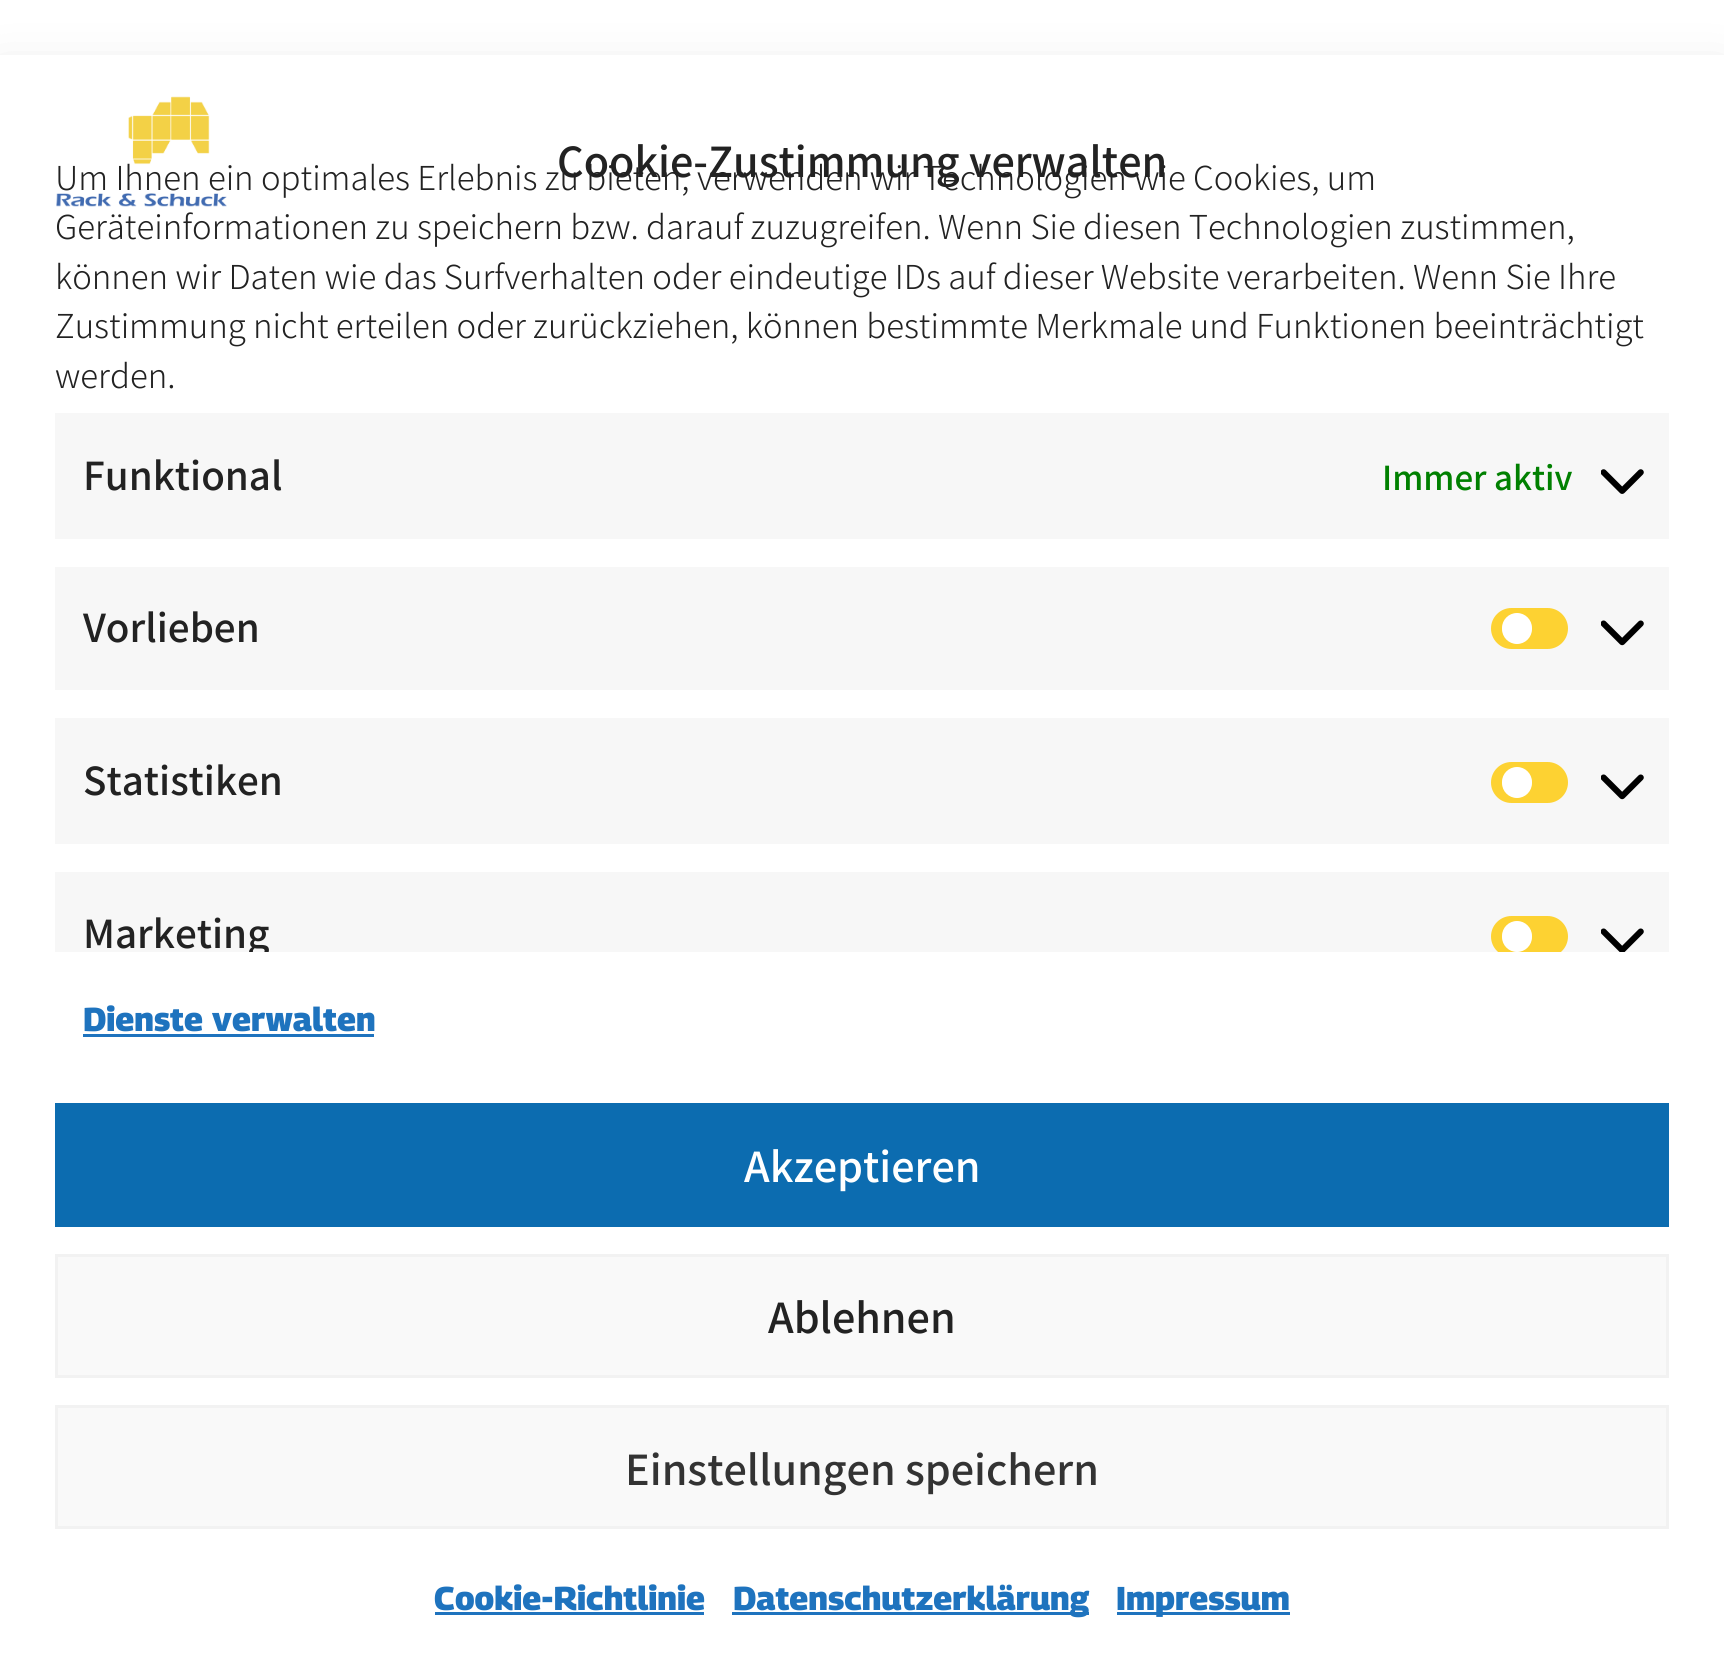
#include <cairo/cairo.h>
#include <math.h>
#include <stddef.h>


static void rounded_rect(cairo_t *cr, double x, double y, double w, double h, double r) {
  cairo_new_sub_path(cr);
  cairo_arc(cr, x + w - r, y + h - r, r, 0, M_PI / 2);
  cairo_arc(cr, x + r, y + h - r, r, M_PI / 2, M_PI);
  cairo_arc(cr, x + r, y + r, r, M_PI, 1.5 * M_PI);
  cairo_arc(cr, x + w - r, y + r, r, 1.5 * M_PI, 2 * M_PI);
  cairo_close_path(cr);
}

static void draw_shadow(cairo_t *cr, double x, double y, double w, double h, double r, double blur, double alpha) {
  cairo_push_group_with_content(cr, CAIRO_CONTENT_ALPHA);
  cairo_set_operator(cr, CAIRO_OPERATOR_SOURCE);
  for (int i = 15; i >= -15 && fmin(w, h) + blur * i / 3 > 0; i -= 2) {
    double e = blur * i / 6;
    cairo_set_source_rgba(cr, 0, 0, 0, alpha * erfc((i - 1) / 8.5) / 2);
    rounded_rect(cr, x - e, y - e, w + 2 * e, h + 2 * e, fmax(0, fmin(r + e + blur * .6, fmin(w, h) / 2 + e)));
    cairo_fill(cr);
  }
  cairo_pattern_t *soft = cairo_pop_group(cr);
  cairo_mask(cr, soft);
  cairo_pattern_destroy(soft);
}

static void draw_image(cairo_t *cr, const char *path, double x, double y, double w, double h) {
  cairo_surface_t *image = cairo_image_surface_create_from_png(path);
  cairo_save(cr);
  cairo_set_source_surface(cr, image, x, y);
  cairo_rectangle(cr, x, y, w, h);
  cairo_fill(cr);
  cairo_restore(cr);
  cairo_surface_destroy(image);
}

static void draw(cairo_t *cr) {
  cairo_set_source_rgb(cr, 1, 1, 1);
  cairo_paint(cr);
  cairo_set_source_rgb(cr, 0, 0, 0);
  draw_shadow(cr, 0, 83, 1724, 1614, 0, 27.5, 0.19);
  cairo_set_source_rgb(cr, 1, 1, 1);
  cairo_rectangle(cr, 0, 55, 1724, 1613);
  cairo_fill(cr);
  draw_image(cr, "images/1.png", 56, 96, 171, 111);
  cairo_set_source_rgb(cr, 247 / 255.0, 247 / 255.0, 247 / 255.0);
  cairo_rectangle(cr, 55, 413, 1614, 126);
  cairo_fill(cr);
  draw_image(cr, "images/2.png", 1601, 469, 43, 25);
  cairo_rectangle(cr, 55, 567, 1614, 123);
  cairo_fill(cr);
  cairo_set_source_rgb(cr, 253 / 255.0, 210 / 255.0, 50 / 255.0);
  rounded_rect(cr, 1491, 608, 77, 41, 20.5);
  cairo_fill(cr);
  cairo_set_source_rgb(cr, 1, 1, 1);
  rounded_rect(cr, 1502, 613, 30, 31, 15);
  cairo_fill(cr);
  draw_image(cr, "images/3.png", 1601, 620, 43, 26);
  cairo_set_source_rgb(cr, 247 / 255.0, 247 / 255.0, 247 / 255.0);
  cairo_rectangle(cr, 55, 718, 1614, 126);
  cairo_fill(cr);
  cairo_set_source_rgb(cr, 253 / 255.0, 210 / 255.0, 50 / 255.0);
  rounded_rect(cr, 1491, 762, 77, 41, 20.5);
  cairo_fill(cr);
  cairo_set_source_rgb(cr, 1, 1, 1);
  rounded_rect(cr, 1502, 767, 30, 31, 15);
  cairo_fill(cr);
  draw_image(cr, "images/3.png", 1601, 774, 43, 26);
  cairo_set_source_rgb(cr, 247 / 255.0, 247 / 255.0, 247 / 255.0);
  cairo_rectangle(cr, 55, 872, 1614, 80);
  cairo_fill(cr);
  cairo_save(cr);
  cairo_rectangle(cr, 55, 151, 1614, 801);
  cairo_clip(cr);
  cairo_set_source_rgb(cr, 253 / 255.0, 210 / 255.0, 50 / 255.0);
  rounded_rect(cr, 1491, 916, 77, 41, 20.5);
  cairo_fill(cr);
  cairo_restore(cr);
  cairo_set_source_rgb(cr, 1, 1, 1);
  rounded_rect(cr, 1502, 921, 30, 31, 15);
  cairo_fill(cr);
  draw_image(cr, "images/4.png", 1601, 928, 43, 24);
  cairo_set_source_rgb(cr, 30 / 255.0, 115 / 255.0, 190 / 255.0);
  cairo_rectangle(cr, 83, 1034, 291, 3);
  cairo_fill(cr);
  cairo_set_source_rgb(cr, 12 / 255.0, 108 / 255.0, 176 / 255.0);
  cairo_rectangle(cr, 55, 1103, 1614, 124);
  cairo_fill(cr);
  cairo_set_source_rgb(cr, 249 / 255.0, 249 / 255.0, 249 / 255.0);
  cairo_rectangle(cr, 56.5, 1255.5, 1611, 121);
  cairo_fill_preserve(cr);
  cairo_set_source_rgb(cr, 242 / 255.0, 242 / 255.0, 242 / 255.0);
  cairo_set_line_width(cr, 3);
  cairo_stroke(cr);
  cairo_set_source_rgb(cr, 249 / 255.0, 249 / 255.0, 249 / 255.0);
  cairo_rectangle(cr, 56.5, 1406.5, 1611, 121);
  cairo_fill_preserve(cr);
  cairo_set_source_rgb(cr, 242 / 255.0, 242 / 255.0, 242 / 255.0);
  cairo_stroke(cr);
  cairo_set_source_rgb(cr, 30 / 255.0, 115 / 255.0, 190 / 255.0);
  cairo_rectangle(cr, 435, 1612, 269, 3);
  cairo_fill(cr);
  cairo_rectangle(cr, 732, 1612, 357, 3);
  cairo_fill(cr);
  cairo_rectangle(cr, 1117, 1612, 173, 3);
  cairo_fill(cr);
  cairo_select_font_face(cr, "Noto Sans JP Medium", CAIRO_FONT_SLANT_NORMAL, CAIRO_FONT_WEIGHT_NORMAL);
  cairo_set_font_size(cr, 41.25);
  cairo_set_source_rgb(cr, 34 / 255.0, 34 / 255.0, 34 / 255.0);
  cairo_move_to(cr, 557, 177);
  cairo_show_text(cr, "Cookie-Zustimmung verwalten");
  cairo_select_font_face(cr, "Noto Sans JP Light", CAIRO_FONT_SLANT_NORMAL, CAIRO_FONT_WEIGHT_NORMAL);
  cairo_set_font_size(cr, 33);
  cairo_move_to(cr, 55, 190);
  cairo_show_text(cr, "Um Ihnen ein optimales Erlebnis zu bieten, verwenden wir Technologien wie Cookies, um");
  cairo_move_to(cr, 55, 239);
  cairo_show_text(cr, "Geräteinformationen zu speichern bzw. darauf zuzugreifen. Wenn Sie diesen Technologien zustimmen,");
  cairo_move_to(cr, 55, 289);
  cairo_show_text(cr, "können wir Daten wie das Surfverhalten oder eindeutige IDs auf dieser Website verarbeiten. Wenn Sie Ihre");
  cairo_move_to(cr, 55, 338);
  cairo_show_text(cr, "Zustimmung nicht erteilen oder zurückziehen, können bestimmte Merkmale und Funktionen beeinträchtigt");
  cairo_move_to(cr, 55, 388);
  cairo_show_text(cr, "werden.");
  cairo_select_font_face(cr, "Noto Sans JP Medium", CAIRO_FONT_SLANT_NORMAL, CAIRO_FONT_WEIGHT_NORMAL);
  cairo_set_font_size(cr, 38.5);
  cairo_move_to(cr, 83, 490);
  cairo_show_text(cr, "Funktional");
  cairo_set_font_size(cr, 33);
  cairo_set_source_rgb(cr, 0, 128 / 255.0, 0);
  cairo_move_to(cr, 1382, 490);
  cairo_show_text(cr, "Immer aktiv");
  cairo_set_font_size(cr, 38.5);
  cairo_set_source_rgb(cr, 34 / 255.0, 34 / 255.0, 34 / 255.0);
  cairo_move_to(cr, 83, 642);
  cairo_show_text(cr, "Vorlieben");
  cairo_move_to(cr, 83, 795);
  cairo_show_text(cr, "Statistiken");
  cairo_save(cr);
  cairo_rectangle(cr, 55, 151, 1614, 801);
  cairo_clip(cr);
  cairo_move_to(cr, 83, 948);
  cairo_show_text(cr, "Marketing");
  cairo_restore(cr);
  cairo_select_font_face(cr, "Georama ExtraBold", CAIRO_FONT_SLANT_NORMAL, CAIRO_FONT_WEIGHT_NORMAL);
  cairo_set_font_size(cr, 33);
  cairo_set_source_rgb(cr, 30 / 255.0, 115 / 255.0, 190 / 255.0);
  cairo_move_to(cr, 83, 1031);
  cairo_show_text(cr, "Dienste verwalten");
  cairo_select_font_face(cr, "Noto Sans JP Medium", CAIRO_FONT_SLANT_NORMAL, CAIRO_FONT_WEIGHT_NORMAL);
  cairo_set_font_size(cr, 41.25);
  cairo_set_source_rgb(cr, 1, 1, 1);
  cairo_move_to(cr, 744, 1182);
  cairo_show_text(cr, "Akzeptieren");
  cairo_set_source_rgb(cr, 34 / 255.0, 34 / 255.0, 34 / 255.0);
  cairo_move_to(cr, 768, 1333);
  cairo_show_text(cr, "Ablehnen");
  cairo_set_source_rgb(cr, 51 / 255.0, 51 / 255.0, 51 / 255.0);
  cairo_move_to(cr, 625, 1485);
  cairo_show_text(cr, "Einstellungen speichern");
  cairo_select_font_face(cr, "Georama ExtraBold", CAIRO_FONT_SLANT_NORMAL, CAIRO_FONT_WEIGHT_NORMAL);
  cairo_set_font_size(cr, 33);
  cairo_set_source_rgb(cr, 30 / 255.0, 115 / 255.0, 190 / 255.0);
  cairo_move_to(cr, 434, 1610);
  cairo_show_text(cr, "Cookie-Richtlinie");
  cairo_move_to(cr, 733, 1610);
  cairo_show_text(cr, "Datenschutzerklärung");
  cairo_move_to(cr, 1116, 1610);
  cairo_show_text(cr, "Impressum");
}

int main(void) {
  cairo_surface_t *surface = cairo_image_surface_create(CAIRO_FORMAT_RGB24, 1724, 1668);
  cairo_t *cr = cairo_create(surface);
  cairo_font_options_t *options = cairo_font_options_create();
  cairo_font_options_set_hint_metrics(options, CAIRO_HINT_METRICS_OFF);
  cairo_font_options_set_hint_style(options, CAIRO_HINT_STYLE_NONE);
  cairo_set_font_options(cr, options);
  cairo_set_miter_limit(cr, 4);
  draw(cr);
  cairo_surface_write_to_png(surface, "out.png");
  cairo_font_options_destroy(options);
  cairo_destroy(cr);
  cairo_surface_destroy(surface);
  return 0;
}
